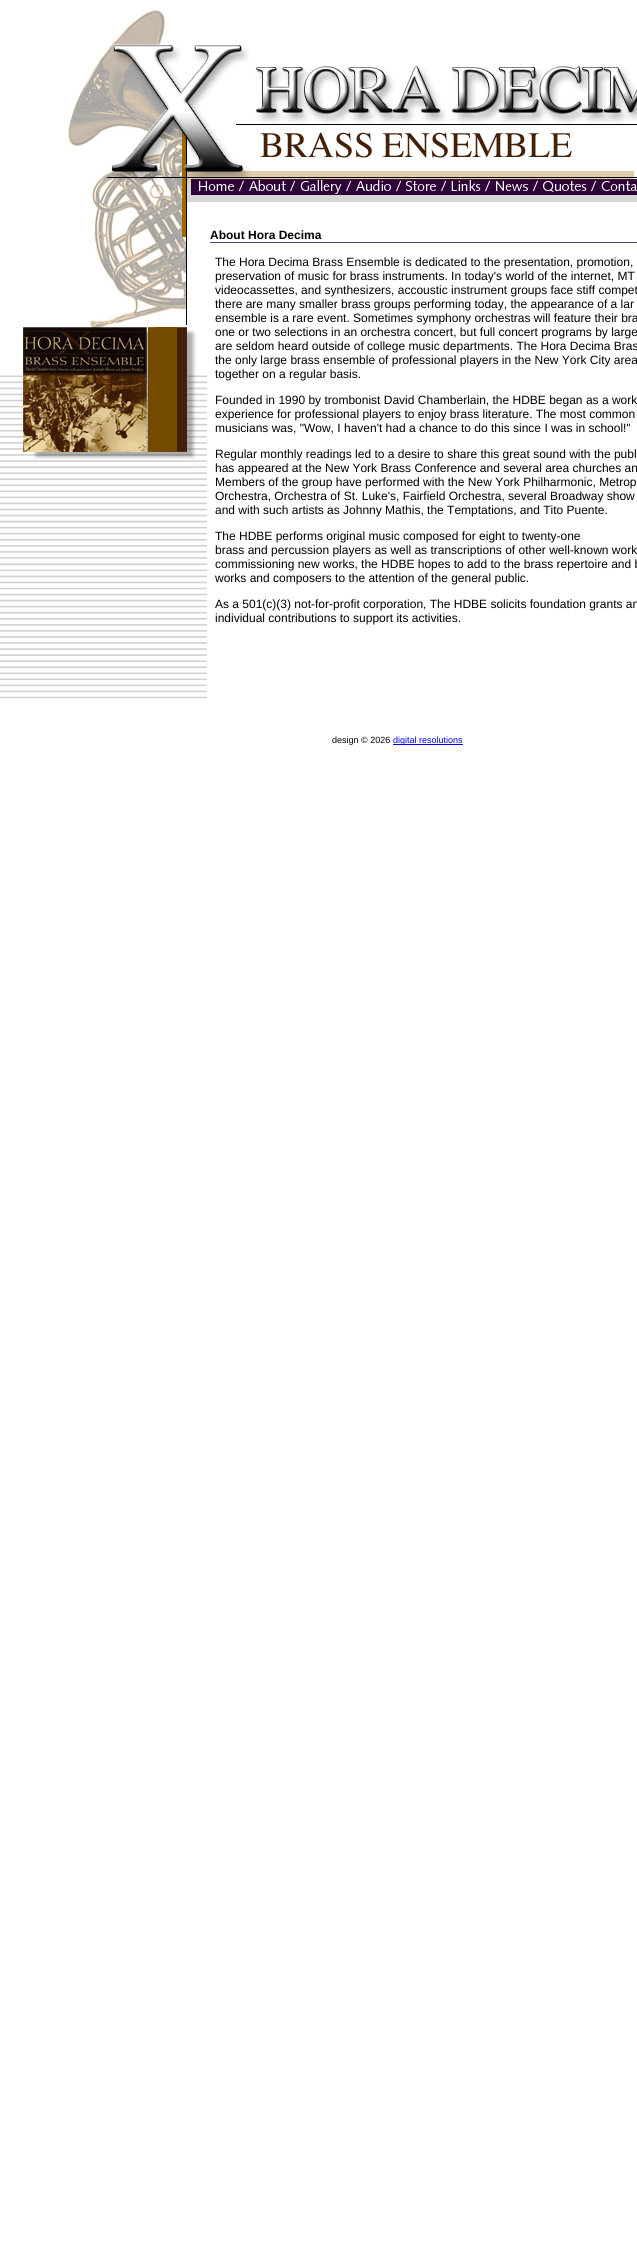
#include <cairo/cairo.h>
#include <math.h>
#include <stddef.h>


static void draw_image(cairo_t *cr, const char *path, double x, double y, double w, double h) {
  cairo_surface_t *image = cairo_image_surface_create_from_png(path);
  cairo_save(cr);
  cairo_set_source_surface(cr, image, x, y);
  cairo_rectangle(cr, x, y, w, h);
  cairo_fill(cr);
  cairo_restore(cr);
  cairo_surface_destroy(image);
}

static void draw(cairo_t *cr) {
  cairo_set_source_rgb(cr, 1, 1, 1);
  cairo_paint(cr);
  draw_image(cr, "images/1.png", 68, 10, 569, 169);
  draw_image(cr, "images/2.png", 92, 179, 99, 16);
  draw_image(cr, "images/3.png", 191, 179, 50, 16);
  draw_image(cr, "images/4.png", 241, 179, 51, 16);
  draw_image(cr, "images/5.png", 292, 179, 56, 16);
  draw_image(cr, "images/6.png", 348, 179, 50, 16);
  draw_image(cr, "images/7.png", 398, 179, 45, 16);
  draw_image(cr, "images/8.png", 443, 179, 44, 16);
  draw_image(cr, "images/9.png", 487, 179, 48, 16);
  draw_image(cr, "images/10.png", 535, 179, 59, 16);
  draw_image(cr, "images/11.png", 594, 179, 43, 16);
  draw_image(cr, "images/12.png", 92, 195, 99, 7);
  cairo_set_source_rgb(cr, 214 / 255.0, 214 / 255.0, 214 / 255.0);
  cairo_rectangle(cr, 191, 195, 446, 7);
  cairo_fill(cr);
  draw_image(cr, "images/13.png", 0, 202, 191, 272);
  draw_image(cr, "images/14.png", 191, 330, 16, 144);
  draw_image(cr, "images/15.png", 0, 478, 191, 221);
  draw_image(cr, "images/16.png", 191, 478, 16, 221);
  cairo_set_source_rgb(cr, 71 / 255.0, 72 / 255.0, 120 / 255.0);
  cairo_rectangle(cr, 210, 242, 427, 1);
  cairo_fill(cr);
  cairo_set_source_rgb(cr, 0, 0, 238 / 255.0);
  cairo_rectangle(cr, 393, 744, 70, 1);
  cairo_fill(cr);
  cairo_select_font_face(cr, "Liberation Sans", CAIRO_FONT_SLANT_NORMAL, CAIRO_FONT_WEIGHT_BOLD);
  cairo_set_font_size(cr, 12);
  cairo_set_source_rgb(cr, 0, 0, 0);
  cairo_move_to(cr, 210, 239);
  cairo_show_text(cr, "About Hora Decima");
  cairo_select_font_face(cr, "Liberation Sans", CAIRO_FONT_SLANT_NORMAL, CAIRO_FONT_WEIGHT_NORMAL);
  cairo_move_to(cr, 215, 266);
  cairo_show_text(cr, "The Hora Decima Brass Ensemble is dedicated to the presentation, promotion,");
  cairo_move_to(cr, 215, 280);
  cairo_show_text(cr, "preservation of music for brass instruments. In today's world of the internet, MT");
  cairo_move_to(cr, 215, 294);
  cairo_show_text(cr, "videocassettes, and synthesizers, accoustic instrument groups face stiff compet");
  cairo_move_to(cr, 215, 308);
  cairo_show_text(cr, "there are many smaller brass groups performing today, the appearance of a lar");
  cairo_move_to(cr, 215, 322);
  cairo_show_text(cr, "ensemble is a rare event. Sometimes symphony orchestras will feature their bra");
  cairo_move_to(cr, 215, 336);
  cairo_show_text(cr, "one or two selections in an orchestra concert, but full concert programs by large");
  cairo_move_to(cr, 215, 350);
  cairo_show_text(cr, "are seldom heard outside of college music departments. The Hora Decima Bras");
  cairo_move_to(cr, 215, 364);
  cairo_show_text(cr, "the only large brass ensemble of professional players in the New York City area");
  cairo_move_to(cr, 215, 378);
  cairo_show_text(cr, "together on a regular basis.");
  cairo_move_to(cr, 215, 404);
  cairo_show_text(cr, "Founded in 1990 by trombonist David Chamberlain, the HDBE began as a work");
  cairo_move_to(cr, 215, 418);
  cairo_show_text(cr, "experience for professional players to enjoy brass literature. The most common");
  cairo_move_to(cr, 215, 432);
  cairo_show_text(cr, "musicians was, \"Wow, I haven't had a chance to do this since I was in school!\"");
  cairo_move_to(cr, 215, 458);
  cairo_show_text(cr, "Regular monthly readings led to a desire to share this great sound with the publ");
  cairo_move_to(cr, 215, 472);
  cairo_show_text(cr, "has appeared at the New York Brass Conference and several area churches an");
  cairo_move_to(cr, 215, 486);
  cairo_show_text(cr, "Members of the group have performed with the New York Philharmonic, Metrop");
  cairo_move_to(cr, 215, 500);
  cairo_show_text(cr, "Orchestra, Orchestra of St. Luke's, Fairfield Orchestra, several Broadway show");
  cairo_move_to(cr, 215, 514);
  cairo_show_text(cr, "and with such artists as Johnny Mathis, the Temptations, and Tito Puente.");
  cairo_move_to(cr, 215, 540);
  cairo_show_text(cr, "The HDBE performs original music composed for eight to twenty-one");
  cairo_move_to(cr, 215, 554);
  cairo_show_text(cr, "brass and percussion players as well as transcriptions of other well-known work");
  cairo_move_to(cr, 215, 568);
  cairo_show_text(cr, "commissioning new works, the HDBE hopes to add to the brass repertoire and b");
  cairo_move_to(cr, 215, 582);
  cairo_show_text(cr, "works and composers to the attention of the general public.");
  cairo_move_to(cr, 215, 608);
  cairo_show_text(cr, "As a 501(c)(3) not-for-profit corporation, The HDBE solicits foundation grants an");
  cairo_move_to(cr, 215, 622);
  cairo_show_text(cr, "individual contributions to support its activities.");
  cairo_set_font_size(cr, 9);
  cairo_move_to(cr, 332, 743);
  cairo_show_text(cr, "design © 2026");
  cairo_set_source_rgb(cr, 0, 0, 238 / 255.0);
  cairo_move_to(cr, 393, 743);
  cairo_show_text(cr, "digital resolutions");
}

int main(void) {
  cairo_surface_t *surface = cairo_image_surface_create(CAIRO_FORMAT_RGB24, 637, 2260);
  cairo_t *cr = cairo_create(surface);
  cairo_font_options_t *options = cairo_font_options_create();
  cairo_font_options_set_hint_metrics(options, CAIRO_HINT_METRICS_OFF);
  cairo_font_options_set_hint_style(options, CAIRO_HINT_STYLE_NONE);
  cairo_set_font_options(cr, options);
  cairo_set_miter_limit(cr, 4);
  draw(cr);
  cairo_surface_write_to_png(surface, "out.png");
  cairo_font_options_destroy(options);
  cairo_destroy(cr);
  cairo_surface_destroy(surface);
  return 0;
}
